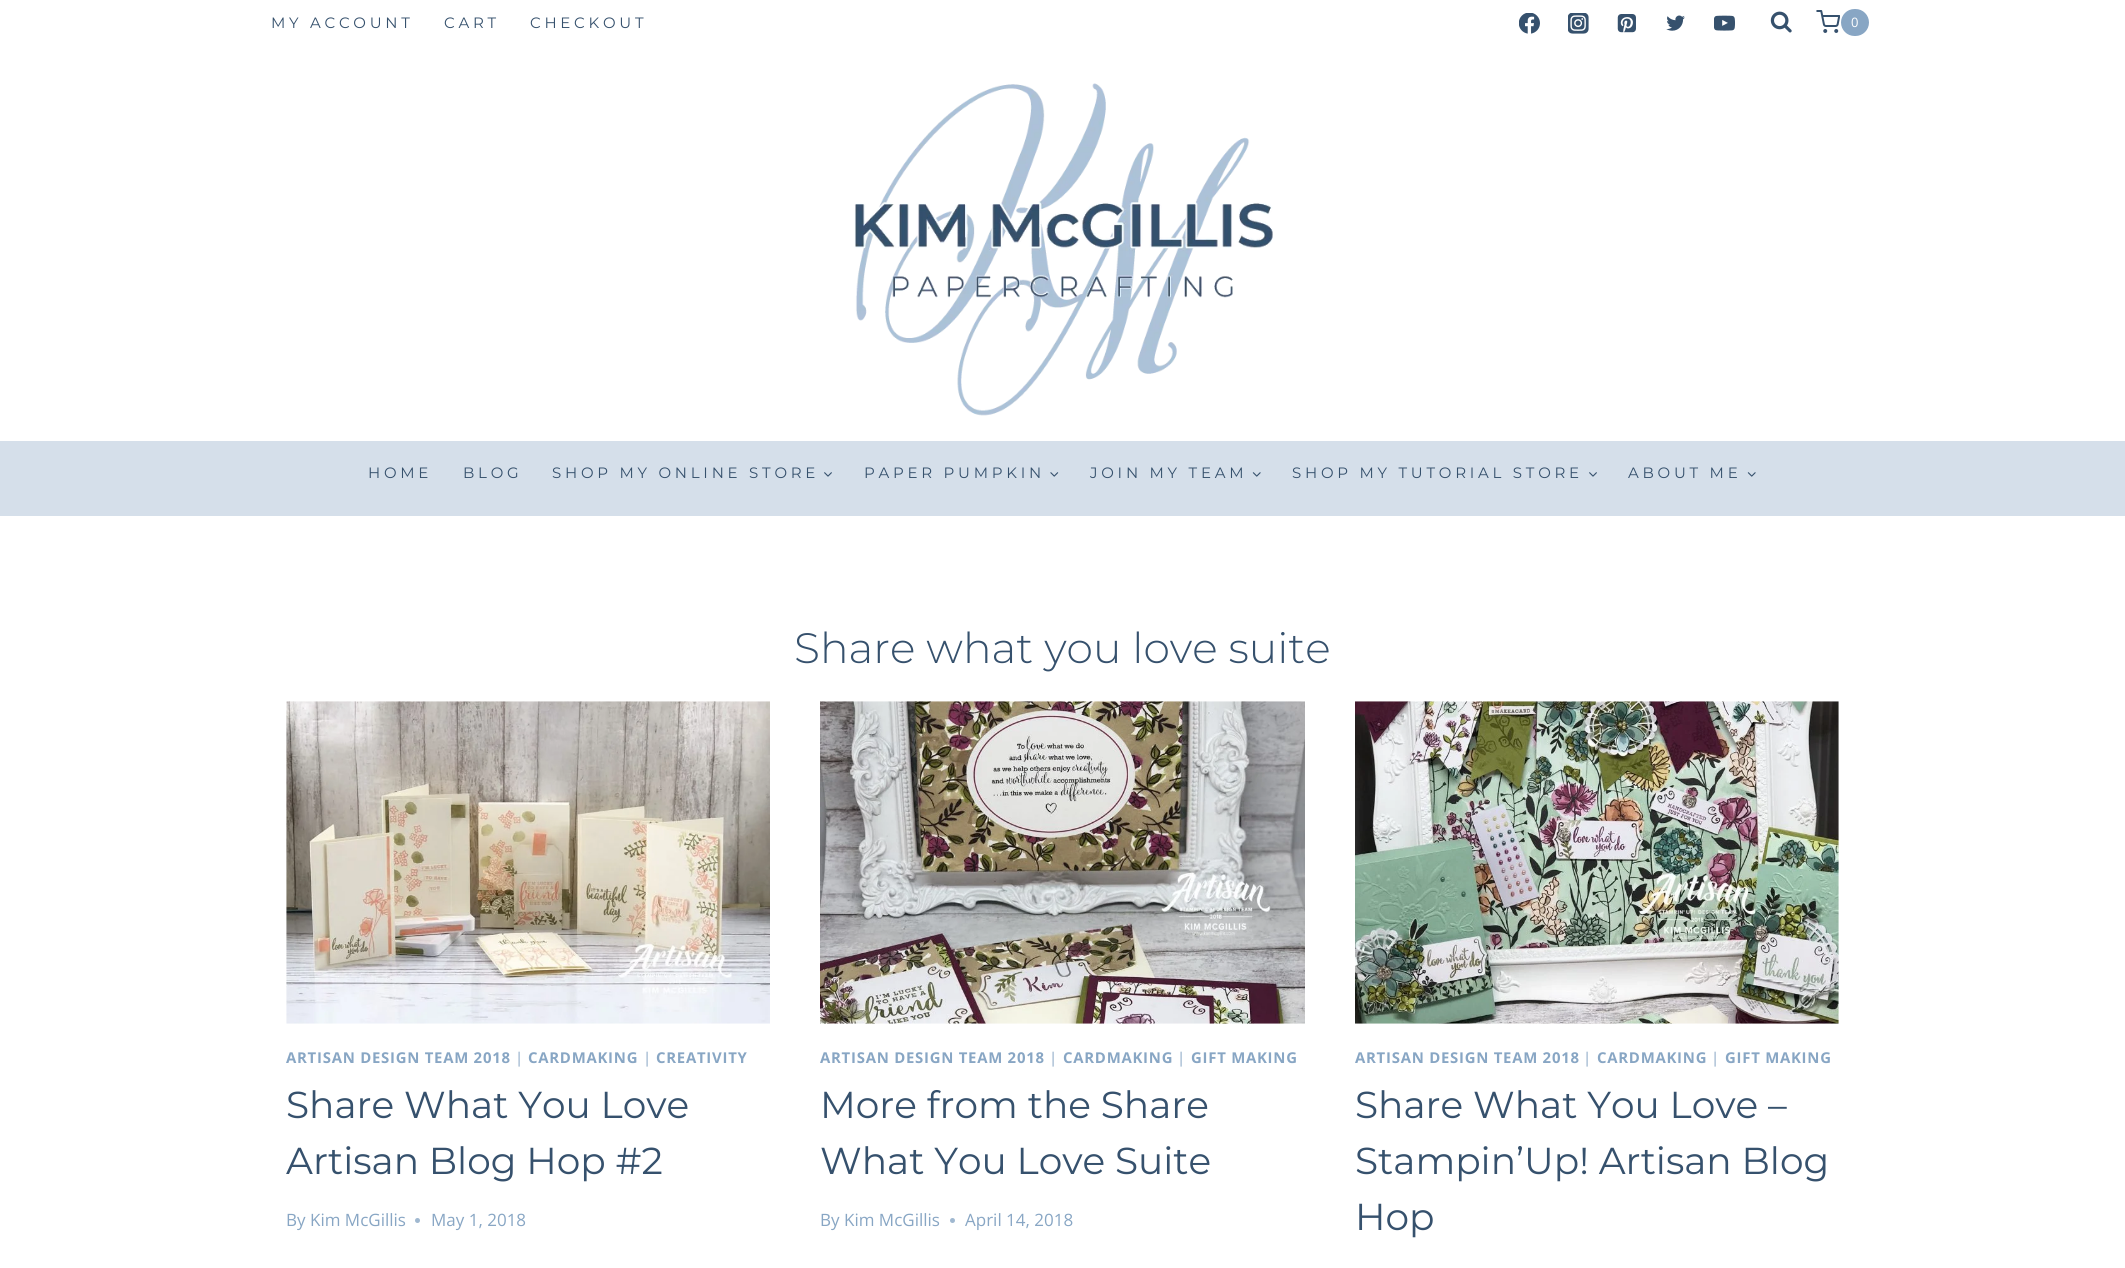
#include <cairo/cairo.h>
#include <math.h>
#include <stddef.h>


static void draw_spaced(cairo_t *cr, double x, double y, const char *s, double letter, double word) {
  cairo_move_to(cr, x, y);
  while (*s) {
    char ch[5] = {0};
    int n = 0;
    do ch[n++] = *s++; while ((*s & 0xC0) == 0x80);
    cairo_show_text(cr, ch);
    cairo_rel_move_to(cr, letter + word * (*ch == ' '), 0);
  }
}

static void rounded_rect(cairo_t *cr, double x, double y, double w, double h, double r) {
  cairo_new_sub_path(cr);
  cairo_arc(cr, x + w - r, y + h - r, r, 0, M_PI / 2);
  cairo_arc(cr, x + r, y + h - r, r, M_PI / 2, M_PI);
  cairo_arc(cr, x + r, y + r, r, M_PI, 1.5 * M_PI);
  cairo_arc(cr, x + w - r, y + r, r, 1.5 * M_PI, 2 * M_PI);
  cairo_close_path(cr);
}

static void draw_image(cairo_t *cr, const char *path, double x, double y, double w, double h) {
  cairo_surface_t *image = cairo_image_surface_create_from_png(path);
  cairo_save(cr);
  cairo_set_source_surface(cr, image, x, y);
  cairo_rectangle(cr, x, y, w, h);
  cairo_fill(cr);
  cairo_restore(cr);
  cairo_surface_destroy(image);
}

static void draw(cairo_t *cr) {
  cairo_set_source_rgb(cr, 1, 1, 1);
  cairo_paint(cr);
  draw_image(cr, "images/1.png", 1519, 13, 21, 21);
  draw_image(cr, "images/2.png", 1568, 13, 21, 21);
  draw_image(cr, "images/3.png", 1617, 14, 19, 19);
  draw_image(cr, "images/4.png", 1666, 15, 19, 16);
  draw_image(cr, "images/5.png", 1714, 15, 21, 16);
  draw_image(cr, "images/6.png", 1770, 11, 22, 22);
  draw_image(cr, "images/7.png", 1816, 10, 24, 23);
  cairo_set_source_rgb(cr, 136 / 255.0, 166 / 255.0, 196 / 255.0);
  rounded_rect(cr, 1841, 9, 28, 27, 13.5);
  cairo_fill(cr);
  draw_image(cr, "images/8.png", 854, 83, 419, 333);
  cairo_set_source_rgb(cr, 213 / 255.0, 223 / 255.0, 234 / 255.0);
  cairo_rectangle(cr, 0, 441, 2125, 75);
  cairo_fill(cr);
  draw_image(cr, "images/9.png", 824, 472, 8, 5);
  draw_image(cr, "images/10.png", 1050, 472, 9, 5);
  draw_image(cr, "images/11.png", 1252, 472, 9, 5);
  draw_image(cr, "images/9.png", 1589, 472, 8, 5);
  draw_image(cr, "images/11.png", 1747, 472, 9, 5);
  draw_image(cr, "images/12.png", 286, 701, 484, 323);
  cairo_set_source_rgb(cr, 160 / 255.0, 184 / 255.0, 208 / 255.0);
  cairo_arc(cr, 417.5, 1220.5, 2.5, 0, 2 * M_PI);
  cairo_fill(cr);
  draw_image(cr, "images/13.png", 820, 701, 485, 323);
  cairo_arc(cr, 952.5, 1220.5, 2.5, 0, 2 * M_PI);
  cairo_fill(cr);
  draw_image(cr, "images/14.png", 1355, 701, 484, 323);
  cairo_select_font_face(cr, "Montserrat", CAIRO_FONT_SLANT_NORMAL, CAIRO_FONT_WEIGHT_NORMAL);
  cairo_set_font_size(cr, 15);
  cairo_set_source_rgb(cr, 54 / 255.0, 81 / 255.0, 109 / 255.0);
  draw_spaced(cr, 271, 28, "MY ACCOUNT", 3.75, 0);
  draw_spaced(cr, 444, 28, "CART", 3.75, 0);
  draw_spaced(cr, 530, 28, "CHECKOUT", 3.75, 0);
  cairo_select_font_face(cr, "Open Sans", CAIRO_FONT_SLANT_NORMAL, CAIRO_FONT_WEIGHT_NORMAL);
  cairo_set_font_size(cr, 13);
  cairo_set_source_rgb(cr, 1, 1, 1);
  cairo_move_to(cr, 1851, 27);
  cairo_show_text(cr, "0");
  cairo_select_font_face(cr, "Montserrat", CAIRO_FONT_SLANT_NORMAL, CAIRO_FONT_WEIGHT_NORMAL);
  cairo_set_font_size(cr, 15);
  cairo_set_source_rgb(cr, 54 / 255.0, 81 / 255.0, 109 / 255.0);
  draw_spaced(cr, 368, 478, "HOME", 3.75, 0);
  draw_spaced(cr, 463, 478, "BLOG", 3.75, 0);
  draw_spaced(cr, 552, 478, "SHOP MY ONLINE STORE", 3.75, 0);
  draw_spaced(cr, 864, 478, "PAPER PUMPKIN", 3.75, 0);
  draw_spaced(cr, 1090, 478, "JOIN MY TEAM", 3.75, 0);
  draw_spaced(cr, 1292, 478, "SHOP MY TUTORIAL STORE", 3.75, 0);
  draw_spaced(cr, 1628, 478, "ABOUT ME", 3.75, 0);
  cairo_select_font_face(cr, "Montserrat Light", CAIRO_FONT_SLANT_NORMAL, CAIRO_FONT_WEIGHT_NORMAL);
  cairo_set_font_size(cr, 42.5);
  cairo_move_to(cr, 794, 663);
  cairo_show_text(cr, "Share what you love suite");
  cairo_select_font_face(cr, "Open Sans", CAIRO_FONT_SLANT_NORMAL, CAIRO_FONT_WEIGHT_BOLD);
  cairo_set_font_size(cr, 14.9);
  cairo_set_source_rgb(cr, 136 / 255.0, 166 / 255.0, 196 / 255.0);
  draw_spaced(cr, 286, 1063, "ARTISAN DESIGN TEAM 2018", 0.75, 0);
  cairo_select_font_face(cr, "Open Sans", CAIRO_FONT_SLANT_NORMAL, CAIRO_FONT_WEIGHT_NORMAL);
  draw_spaced(cr, 515, 1063, "|", 0.75, 0);
  cairo_select_font_face(cr, "Open Sans", CAIRO_FONT_SLANT_NORMAL, CAIRO_FONT_WEIGHT_BOLD);
  draw_spaced(cr, 528, 1063, "CARDMAKING", 0.75, 0);
  cairo_select_font_face(cr, "Open Sans", CAIRO_FONT_SLANT_NORMAL, CAIRO_FONT_WEIGHT_NORMAL);
  draw_spaced(cr, 643, 1063, "|", 0.75, 0);
  cairo_select_font_face(cr, "Open Sans", CAIRO_FONT_SLANT_NORMAL, CAIRO_FONT_WEIGHT_BOLD);
  draw_spaced(cr, 656, 1063, "CREATIVITY", 0.75, 0);
  cairo_select_font_face(cr, "Montserrat", CAIRO_FONT_SLANT_NORMAL, CAIRO_FONT_WEIGHT_NORMAL);
  cairo_set_font_size(cr, 37.5);
  cairo_set_source_rgb(cr, 54 / 255.0, 81 / 255.0, 109 / 255.0);
  cairo_move_to(cr, 286, 1118);
  cairo_show_text(cr, "Share What You Love");
  cairo_move_to(cr, 286, 1174);
  cairo_show_text(cr, "Artisan Blog Hop #2");
  cairo_select_font_face(cr, "Open Sans", CAIRO_FONT_SLANT_NORMAL, CAIRO_FONT_WEIGHT_NORMAL);
  cairo_set_font_size(cr, 17);
  cairo_set_source_rgb(cr, 136 / 255.0, 166 / 255.0, 196 / 255.0);
  cairo_move_to(cr, 286, 1226);
  cairo_show_text(cr, "By");
  cairo_move_to(cr, 310, 1226);
  cairo_show_text(cr, "Kim McGillis");
  cairo_move_to(cr, 431, 1226);
  cairo_show_text(cr, "May 1, 2018");
  cairo_select_font_face(cr, "Open Sans", CAIRO_FONT_SLANT_NORMAL, CAIRO_FONT_WEIGHT_BOLD);
  cairo_set_font_size(cr, 14.9);
  draw_spaced(cr, 820, 1063, "ARTISAN DESIGN TEAM 2018", 0.75, 0);
  cairo_select_font_face(cr, "Open Sans", CAIRO_FONT_SLANT_NORMAL, CAIRO_FONT_WEIGHT_NORMAL);
  draw_spaced(cr, 1049, 1063, "|", 0.75, 0);
  cairo_select_font_face(cr, "Open Sans", CAIRO_FONT_SLANT_NORMAL, CAIRO_FONT_WEIGHT_BOLD);
  draw_spaced(cr, 1063, 1063, "CARDMAKING", 0.75, 0);
  cairo_select_font_face(cr, "Open Sans", CAIRO_FONT_SLANT_NORMAL, CAIRO_FONT_WEIGHT_NORMAL);
  draw_spaced(cr, 1177, 1063, "|", 0.75, 0);
  cairo_select_font_face(cr, "Open Sans", CAIRO_FONT_SLANT_NORMAL, CAIRO_FONT_WEIGHT_BOLD);
  draw_spaced(cr, 1191, 1063, "GIFT MAKING", 0.75, 0);
  cairo_select_font_face(cr, "Montserrat", CAIRO_FONT_SLANT_NORMAL, CAIRO_FONT_WEIGHT_NORMAL);
  cairo_set_font_size(cr, 37.5);
  cairo_set_source_rgb(cr, 54 / 255.0, 81 / 255.0, 109 / 255.0);
  cairo_move_to(cr, 820, 1118);
  cairo_show_text(cr, "More from the Share");
  cairo_move_to(cr, 820, 1174);
  cairo_show_text(cr, "What You Love Suite");
  cairo_select_font_face(cr, "Open Sans", CAIRO_FONT_SLANT_NORMAL, CAIRO_FONT_WEIGHT_NORMAL);
  cairo_set_font_size(cr, 17);
  cairo_set_source_rgb(cr, 136 / 255.0, 166 / 255.0, 196 / 255.0);
  cairo_move_to(cr, 820, 1226);
  cairo_show_text(cr, "By");
  cairo_move_to(cr, 844, 1226);
  cairo_show_text(cr, "Kim McGillis");
  cairo_move_to(cr, 965, 1226);
  cairo_show_text(cr, "April 14, 2018");
  cairo_select_font_face(cr, "Open Sans", CAIRO_FONT_SLANT_NORMAL, CAIRO_FONT_WEIGHT_BOLD);
  cairo_set_font_size(cr, 14.9);
  draw_spaced(cr, 1355, 1063, "ARTISAN DESIGN TEAM 2018", 0.75, 0);
  cairo_select_font_face(cr, "Open Sans", CAIRO_FONT_SLANT_NORMAL, CAIRO_FONT_WEIGHT_NORMAL);
  draw_spaced(cr, 1583, 1063, "|", 0.75, 0);
  cairo_select_font_face(cr, "Open Sans", CAIRO_FONT_SLANT_NORMAL, CAIRO_FONT_WEIGHT_BOLD);
  draw_spaced(cr, 1597, 1063, "CARDMAKING", 0.75, 0);
  cairo_select_font_face(cr, "Open Sans", CAIRO_FONT_SLANT_NORMAL, CAIRO_FONT_WEIGHT_NORMAL);
  draw_spaced(cr, 1711, 1063, "|", 0.75, 0);
  cairo_select_font_face(cr, "Open Sans", CAIRO_FONT_SLANT_NORMAL, CAIRO_FONT_WEIGHT_BOLD);
  draw_spaced(cr, 1725, 1063, "GIFT MAKING", 0.75, 0);
  cairo_select_font_face(cr, "Montserrat", CAIRO_FONT_SLANT_NORMAL, CAIRO_FONT_WEIGHT_NORMAL);
  cairo_set_font_size(cr, 37.5);
  cairo_set_source_rgb(cr, 54 / 255.0, 81 / 255.0, 109 / 255.0);
  cairo_move_to(cr, 1355, 1118);
  cairo_show_text(cr, "Share What You Love –");
  cairo_move_to(cr, 1355, 1174);
  cairo_show_text(cr, "Stampin’Up! Artisan Blog");
  cairo_move_to(cr, 1355, 1230);
  cairo_show_text(cr, "Hop");
}

int main(void) {
  cairo_surface_t *surface = cairo_image_surface_create(CAIRO_FORMAT_RGB24, 2125, 1268);
  cairo_t *cr = cairo_create(surface);
  cairo_font_options_t *options = cairo_font_options_create();
  cairo_font_options_set_hint_metrics(options, CAIRO_HINT_METRICS_OFF);
  cairo_font_options_set_hint_style(options, CAIRO_HINT_STYLE_NONE);
  cairo_set_font_options(cr, options);
  cairo_set_miter_limit(cr, 4);
  draw(cr);
  cairo_surface_write_to_png(surface, "out.png");
  cairo_font_options_destroy(options);
  cairo_destroy(cr);
  cairo_surface_destroy(surface);
  return 0;
}
